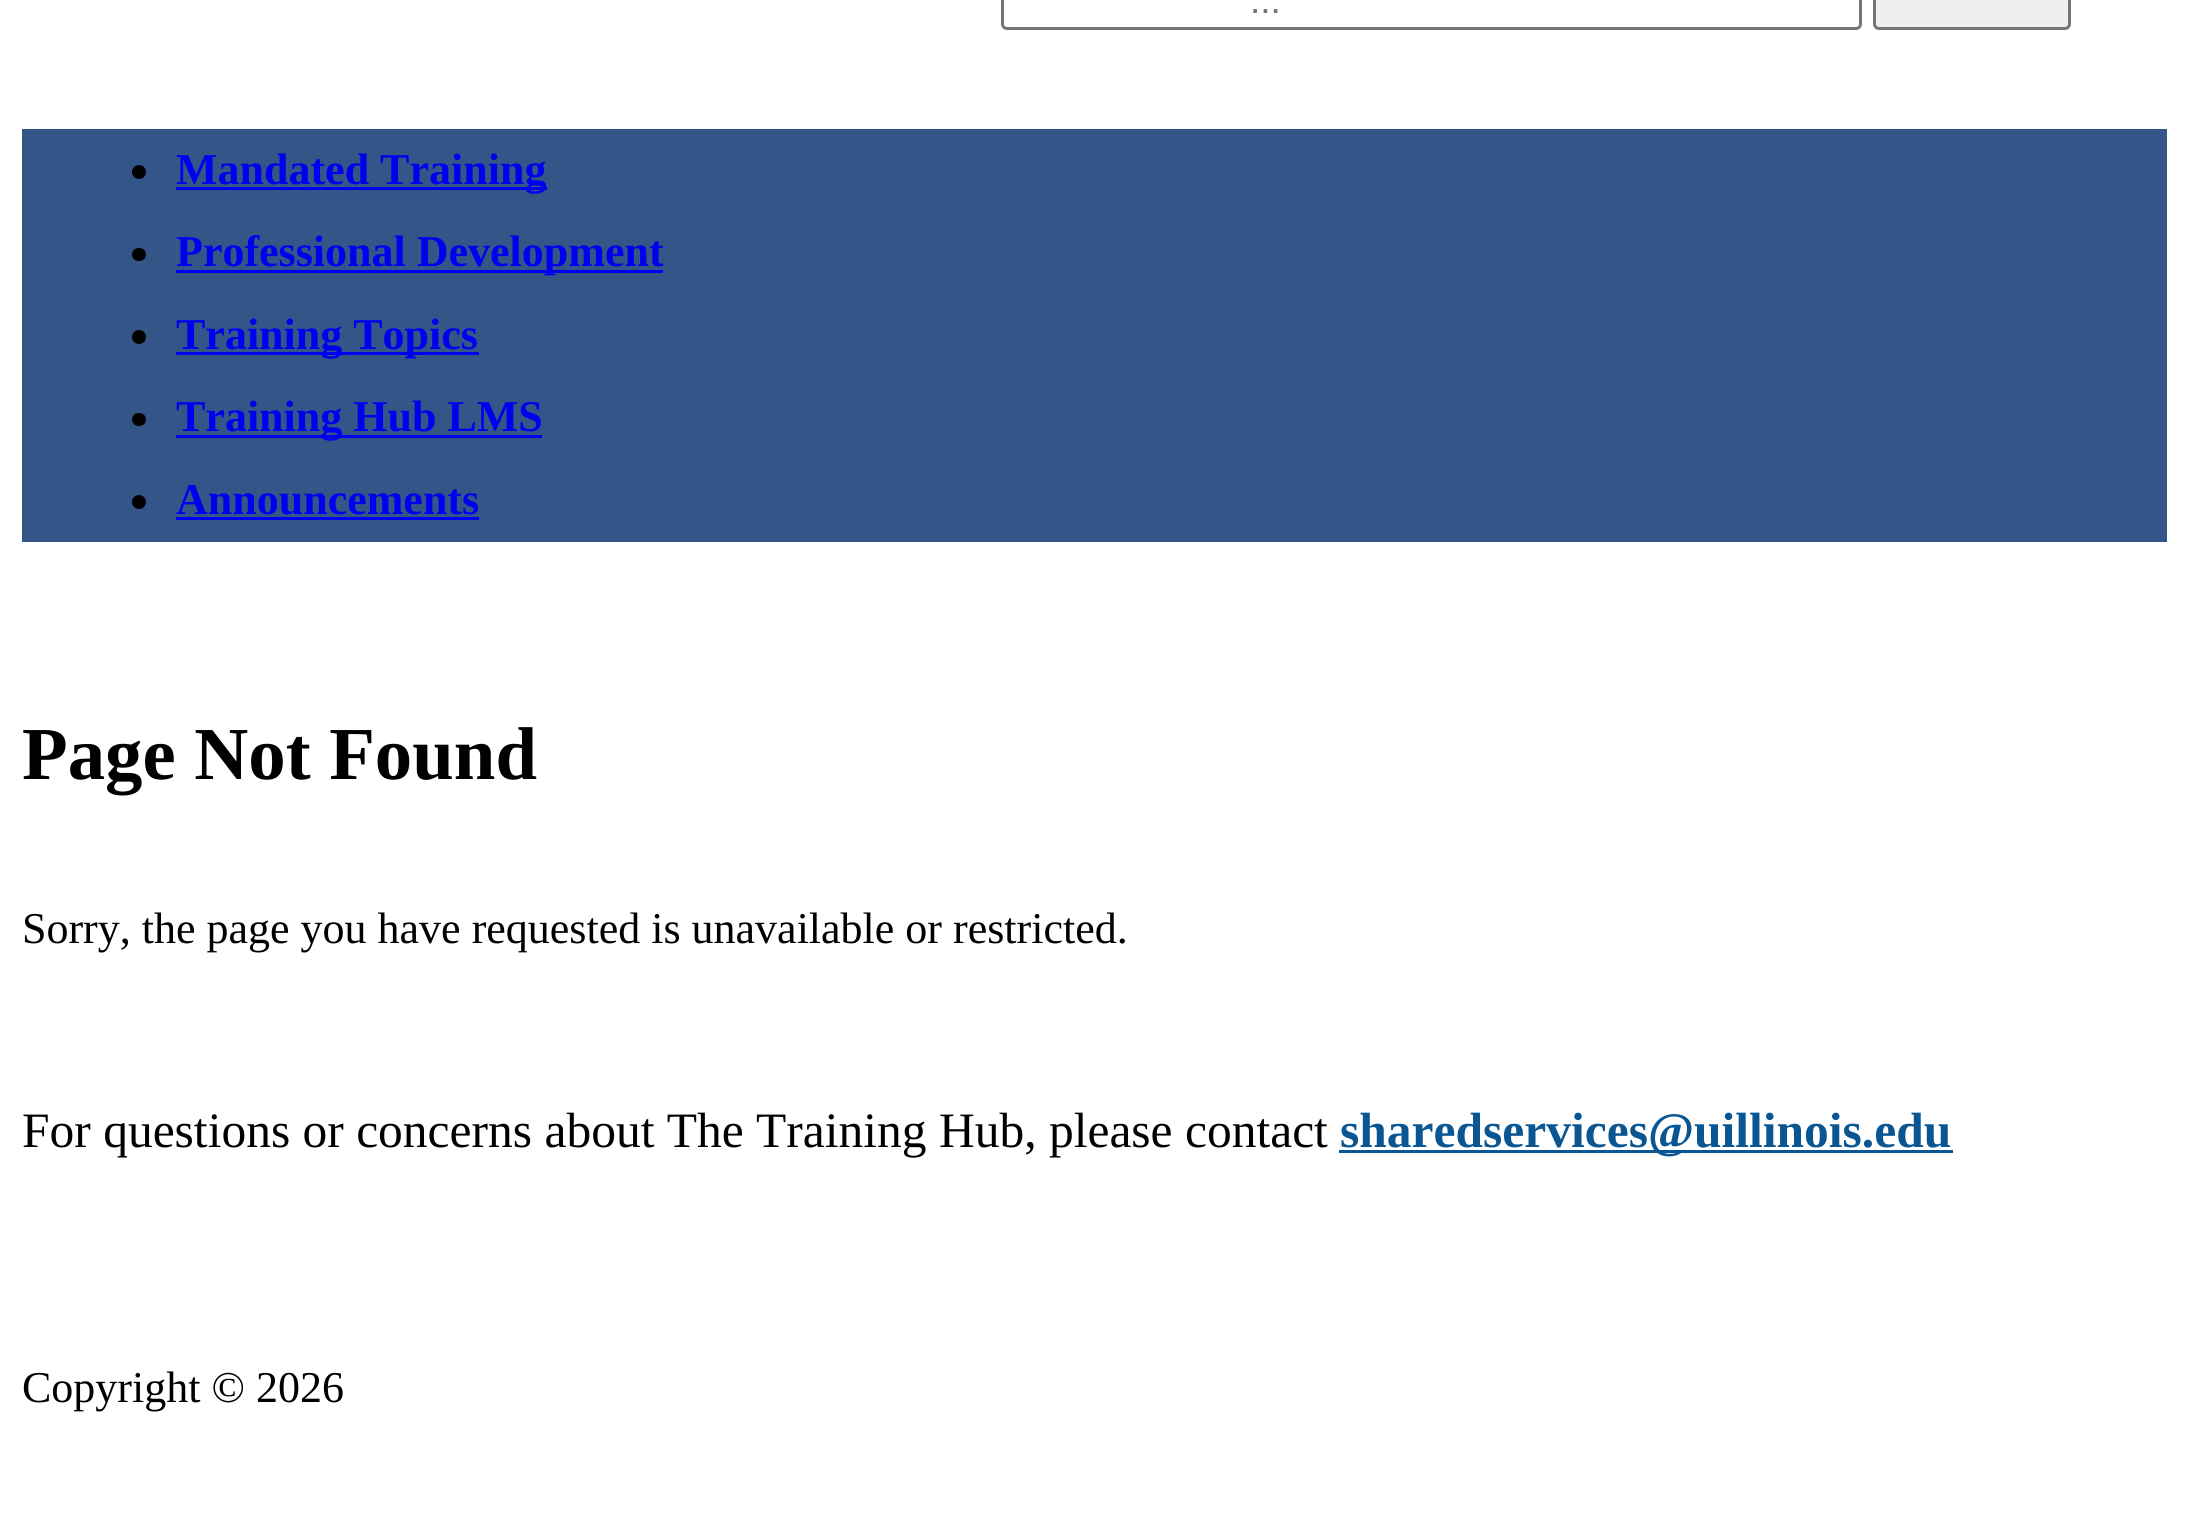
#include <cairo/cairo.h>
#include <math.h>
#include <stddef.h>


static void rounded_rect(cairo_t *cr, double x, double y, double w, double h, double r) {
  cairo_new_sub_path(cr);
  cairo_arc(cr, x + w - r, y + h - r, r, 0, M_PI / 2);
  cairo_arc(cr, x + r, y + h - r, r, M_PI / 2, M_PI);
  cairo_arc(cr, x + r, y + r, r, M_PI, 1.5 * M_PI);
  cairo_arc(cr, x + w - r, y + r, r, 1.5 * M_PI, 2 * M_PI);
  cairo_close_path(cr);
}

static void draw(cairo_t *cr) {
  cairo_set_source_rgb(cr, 1, 1, 1);
  cairo_paint(cr);
  rounded_rect(cr, 1002.5, -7.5, 858, 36, 4.5);
  cairo_set_source_rgb(cr, 118 / 255.0, 118 / 255.0, 118 / 255.0);
  cairo_set_line_width(cr, 3);
  cairo_stroke(cr);
  cairo_set_source_rgb(cr, 239 / 255.0, 239 / 255.0, 239 / 255.0);
  rounded_rect(cr, 1874.5, -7.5, 195, 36, 4.5);
  cairo_fill_preserve(cr);
  cairo_set_source_rgb(cr, 118 / 255.0, 118 / 255.0, 118 / 255.0);
  cairo_stroke(cr);
  cairo_set_source_rgb(cr, 52 / 255.0, 85 / 255.0, 136 / 255.0);
  cairo_rectangle(cr, 22, 129, 2145, 413);
  cairo_fill(cr);
  cairo_set_source_rgb(cr, 0, 0, 0);
  cairo_arc(cr, 139, 172, 7, 0, 2 * M_PI);
  cairo_fill(cr);
  cairo_set_source_rgb(cr, 0, 0, 238 / 255.0);
  cairo_rectangle(cr, 176, 187, 371, 3);
  cairo_fill(cr);
  cairo_set_source_rgb(cr, 0, 0, 0);
  rounded_rect(cr, 132, 248, 14, 13, 6.5);
  cairo_fill(cr);
  cairo_set_source_rgb(cr, 0, 0, 238 / 255.0);
  cairo_rectangle(cr, 176, 270, 487, 3);
  cairo_fill(cr);
  cairo_set_source_rgb(cr, 0, 0, 0);
  cairo_arc(cr, 139, 337, 7, 0, 2 * M_PI);
  cairo_fill(cr);
  cairo_set_source_rgb(cr, 0, 0, 238 / 255.0);
  cairo_rectangle(cr, 176, 352, 303, 3);
  cairo_fill(cr);
  cairo_set_source_rgb(cr, 0, 0, 0);
  rounded_rect(cr, 132, 413, 14, 13, 6.5);
  cairo_fill(cr);
  cairo_set_source_rgb(cr, 0, 0, 238 / 255.0);
  cairo_rectangle(cr, 176, 435, 366, 3);
  cairo_fill(cr);
  cairo_set_source_rgb(cr, 0, 0, 0);
  cairo_arc(cr, 139, 502, 7, 0, 2 * M_PI);
  cairo_fill(cr);
  cairo_set_source_rgb(cr, 0, 0, 238 / 255.0);
  cairo_rectangle(cr, 176, 517, 303, 3);
  cairo_fill(cr);
  cairo_set_source_rgb(cr, 10 / 255.0, 86 / 255.0, 146 / 255.0);
  cairo_rectangle(cr, 1339, 1150, 614, 3);
  cairo_fill(cr);
  cairo_select_font_face(cr, "Liberation Sans", CAIRO_FONT_SLANT_NORMAL, CAIRO_FONT_WEIGHT_NORMAL);
  cairo_set_font_size(cr, 37);
  cairo_set_source_rgb(cr, 117 / 255.0, 117 / 255.0, 117 / 255.0);
  cairo_move_to(cr, 1250, 13);
  cairo_show_text(cr, "...");
  cairo_select_font_face(cr, "Liberation Serif", CAIRO_FONT_SLANT_NORMAL, CAIRO_FONT_WEIGHT_BOLD);
  cairo_set_font_size(cr, 44);
  cairo_set_source_rgb(cr, 0, 0, 238 / 255.0);
  cairo_move_to(cr, 176, 184);
  cairo_show_text(cr, "Mandated Training");
  cairo_move_to(cr, 176, 266);
  cairo_show_text(cr, "Professional Development");
  cairo_move_to(cr, 176, 349);
  cairo_show_text(cr, "Training Topics");
  cairo_move_to(cr, 176, 431);
  cairo_show_text(cr, "Training Hub LMS");
  cairo_move_to(cr, 176, 514);
  cairo_show_text(cr, "Announcements");
  cairo_set_font_size(cr, 74.75);
  cairo_set_source_rgb(cr, 0, 0, 0);
  cairo_move_to(cr, 22, 779);
  cairo_show_text(cr, "Page Not Found");
  cairo_select_font_face(cr, "Liberation Serif", CAIRO_FONT_SLANT_NORMAL, CAIRO_FONT_WEIGHT_NORMAL);
  cairo_set_font_size(cr, 44);
  cairo_move_to(cr, 22, 943);
  cairo_show_text(cr, "Sorry, the page you have requested is unavailable or restricted.");
  cairo_set_font_size(cr, 49.5);
  cairo_move_to(cr, 22, 1147);
  cairo_show_text(cr, "For questions or concerns about The Training Hub, please contact");
  cairo_select_font_face(cr, "Liberation Serif", CAIRO_FONT_SLANT_NORMAL, CAIRO_FONT_WEIGHT_BOLD);
  cairo_set_source_rgb(cr, 10 / 255.0, 86 / 255.0, 146 / 255.0);
  cairo_move_to(cr, 1340, 1147);
  cairo_show_text(cr, "sharedservices@uillinois.edu");
  cairo_select_font_face(cr, "Liberation Serif", CAIRO_FONT_SLANT_NORMAL, CAIRO_FONT_WEIGHT_NORMAL);
  cairo_set_font_size(cr, 44);
  cairo_set_source_rgb(cr, 0, 0, 0);
  cairo_move_to(cr, 22, 1402);
  cairo_show_text(cr, "Copyright © 2026");
}

int main(void) {
  cairo_surface_t *surface = cairo_image_surface_create(CAIRO_FORMAT_RGB24, 2188, 1529);
  cairo_t *cr = cairo_create(surface);
  cairo_font_options_t *options = cairo_font_options_create();
  cairo_font_options_set_hint_metrics(options, CAIRO_HINT_METRICS_OFF);
  cairo_font_options_set_hint_style(options, CAIRO_HINT_STYLE_NONE);
  cairo_set_font_options(cr, options);
  cairo_set_miter_limit(cr, 4);
  draw(cr);
  cairo_surface_write_to_png(surface, "out.png");
  cairo_font_options_destroy(options);
  cairo_destroy(cr);
  cairo_surface_destroy(surface);
  return 0;
}
